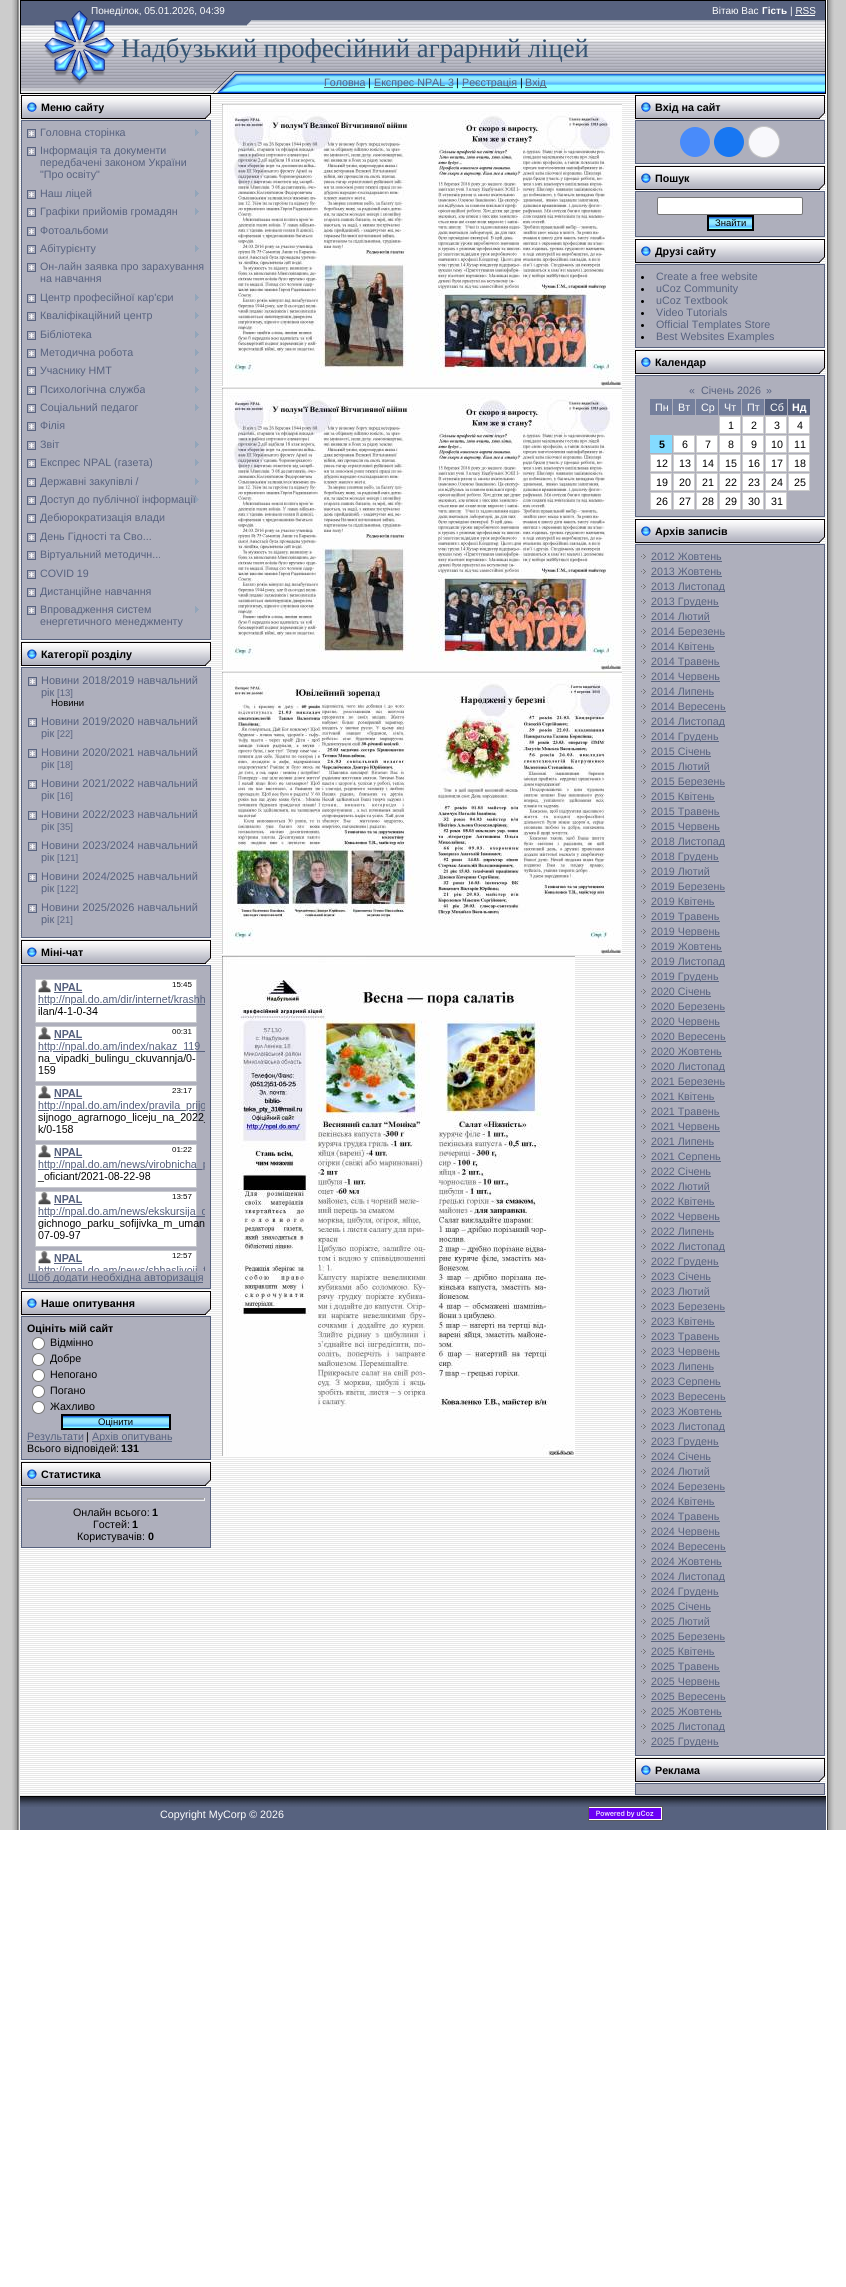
#include <cairo/cairo.h>
#include <math.h>
#include <stddef.h>


static void rounded_rect(cairo_t *cr, double x, double y, double w, double h, double r) {
  cairo_new_sub_path(cr);
  cairo_arc(cr, x + w - r, y + h - r, r, 0, M_PI / 2);
  cairo_arc(cr, x + r, y + h - r, r, M_PI / 2, M_PI);
  cairo_arc(cr, x + r, y + r, r, M_PI, 1.5 * M_PI);
  cairo_arc(cr, x + w - r, y + r, r, 1.5 * M_PI, 2 * M_PI);
  cairo_close_path(cr);
}

static void draw_image(cairo_t *cr, const char *path, double x, double y, double w, double h) {
  cairo_surface_t *image = cairo_image_surface_create_from_png(path);
  cairo_save(cr);
  cairo_set_source_surface(cr, image, x, y);
  cairo_rectangle(cr, x, y, w, h);
  cairo_fill(cr);
  cairo_restore(cr);
  cairo_surface_destroy(image);
}

static void draw(cairo_t *cr) {
  cairo_set_source_rgb(cr, 1, 1, 1);
  cairo_paint(cr);
  cairo_set_source_rgb(cr, 204 / 255.0, 204 / 255.0, 204 / 255.0);
  cairo_rectangle(cr, 0, 0, 12, 1830);
  cairo_fill(cr);
  draw_image(cr, "images/1.png", 12, 0, 8, 1830);
  draw_image(cr, "images/2.png", 21, 1, 804, 92);
  cairo_rectangle(cr, 20.5, 0.5, 805, 93);
  cairo_set_source_rgb(cr, 0, 0, 0);
  cairo_set_line_width(cr, 1);
  cairo_stroke(cr);
  draw_image(cr, "images/3.png", 21, 10, 230, 15);
  cairo_set_source_rgb(cr, 1, 1, 1);
  cairo_rectangle(cr, 795, 15, 20, 1);
  cairo_fill(cr);
  draw_image(cr, "images/4.png", 21, 25, 226, 46);
  draw_image(cr, "images/5.png", 21, 71, 220, 22);
  cairo_set_source_rgb(cr, 87 / 255.0, 98 / 255.0, 127 / 255.0);
  cairo_rectangle(cr, 324, 87, 41, 1);
  cairo_fill(cr);
  cairo_rectangle(cr, 374, 87, 79, 1);
  cairo_fill(cr);
  cairo_rectangle(cr, 462, 87, 55, 1);
  cairo_fill(cr);
  cairo_rectangle(cr, 525, 87, 22, 1);
  cairo_fill(cr);
  draw_image(cr, "images/6.png", 20, 95, 806, 1701);
  draw_image(cr, "images/7.png", 21, 95, 190, 24);
  cairo_set_source_rgb(cr, 174 / 255.0, 175 / 255.0, 188 / 255.0);
  cairo_rectangle(cr, 21.5, 120.5, 189, 519);
  cairo_fill_preserve(cr);
  cairo_set_source_rgb(cr, 87 / 255.0, 98 / 255.0, 127 / 255.0);
  cairo_stroke(cr);
  draw_image(cr, "images/8.png", 27, 129, 9, 9);
  draw_image(cr, "images/9.png", 195, 129, 4, 7);
  draw_image(cr, "images/8.png", 27, 147, 9, 9);
  draw_image(cr, "images/8.png", 27, 190, 9, 9);
  draw_image(cr, "images/9.png", 195, 190, 4, 7);
  draw_image(cr, "images/8.png", 27, 208, 9, 9);
  draw_image(cr, "images/9.png", 195, 208, 4, 7);
  draw_image(cr, "images/8.png", 27, 227, 9, 9);
  draw_image(cr, "images/8.png", 27, 245, 9, 9);
  draw_image(cr, "images/9.png", 195, 245, 4, 7);
  draw_image(cr, "images/8.png", 27, 263, 9, 9);
  draw_image(cr, "images/8.png", 27, 294, 9, 9);
  draw_image(cr, "images/9.png", 195, 294, 4, 7);
  draw_image(cr, "images/8.png", 27, 312, 9, 9);
  draw_image(cr, "images/9.png", 195, 312, 4, 7);
  draw_image(cr, "images/8.png", 27, 331, 9, 9);
  draw_image(cr, "images/9.png", 195, 331, 4, 7);
  draw_image(cr, "images/8.png", 27, 349, 9, 9);
  draw_image(cr, "images/9.png", 195, 349, 4, 7);
  draw_image(cr, "images/8.png", 27, 367, 9, 9);
  draw_image(cr, "images/9.png", 195, 367, 4, 7);
  draw_image(cr, "images/8.png", 27, 386, 9, 9);
  draw_image(cr, "images/9.png", 195, 386, 4, 7);
  draw_image(cr, "images/8.png", 27, 404, 9, 9);
  draw_image(cr, "images/9.png", 195, 404, 4, 7);
  draw_image(cr, "images/8.png", 27, 422, 9, 9);
  draw_image(cr, "images/8.png", 27, 441, 9, 9);
  draw_image(cr, "images/9.png", 195, 441, 4, 7);
  draw_image(cr, "images/8.png", 27, 459, 9, 9);
  draw_image(cr, "images/9.png", 195, 459, 4, 7);
  draw_image(cr, "images/8.png", 27, 478, 9, 9);
  draw_image(cr, "images/9.png", 195, 478, 4, 7);
  draw_image(cr, "images/8.png", 27, 496, 9, 9);
  draw_image(cr, "images/9.png", 195, 496, 4, 7);
  draw_image(cr, "images/8.png", 27, 514, 9, 9);
  draw_image(cr, "images/8.png", 27, 533, 9, 9);
  draw_image(cr, "images/8.png", 27, 551, 9, 9);
  draw_image(cr, "images/8.png", 27, 570, 9, 9);
  draw_image(cr, "images/8.png", 27, 588, 9, 9);
  draw_image(cr, "images/8.png", 27, 606, 9, 9);
  draw_image(cr, "images/9.png", 195, 606, 4, 7);
  draw_image(cr, "images/10.png", 21, 642, 190, 24);
  cairo_set_source_rgb(cr, 174 / 255.0, 175 / 255.0, 188 / 255.0);
  cairo_rectangle(cr, 21.5, 667.5, 189, 270);
  cairo_fill_preserve(cr);
  cairo_set_source_rgb(cr, 87 / 255.0, 98 / 255.0, 127 / 255.0);
  cairo_stroke(cr);
  draw_image(cr, "images/8.png", 28, 677, 9, 9);
  draw_image(cr, "images/8.png", 28, 718, 9, 9);
  draw_image(cr, "images/8.png", 28, 749, 9, 9);
  draw_image(cr, "images/8.png", 28, 780, 9, 9);
  draw_image(cr, "images/8.png", 28, 811, 9, 9);
  draw_image(cr, "images/8.png", 28, 842, 9, 9);
  draw_image(cr, "images/8.png", 28, 873, 9, 9);
  draw_image(cr, "images/8.png", 28, 904, 9, 9);
  draw_image(cr, "images/10.png", 21, 940, 190, 24);
  cairo_set_source_rgb(cr, 174 / 255.0, 175 / 255.0, 188 / 255.0);
  cairo_rectangle(cr, 21.5, 965.5, 189, 323);
  cairo_fill_preserve(cr);
  cairo_set_source_rgb(cr, 87 / 255.0, 98 / 255.0, 127 / 255.0);
  cairo_stroke(cr);
  draw_image(cr, "images/11.png", 35, 979, 170, 292);
  cairo_rectangle(cr, 28, 1282, 175, 1);
  cairo_fill(cr);
  draw_image(cr, "images/7.png", 21, 1291, 190, 24);
  cairo_set_source_rgb(cr, 174 / 255.0, 175 / 255.0, 188 / 255.0);
  cairo_rectangle(cr, 21.5, 1316.5, 189, 143);
  cairo_fill_preserve(cr);
  cairo_set_source_rgb(cr, 87 / 255.0, 98 / 255.0, 127 / 255.0);
  cairo_stroke(cr);
  cairo_set_source_rgb(cr, 1, 1, 1);
  cairo_arc(cr, 38.5, 1343.5, 6, 0, 2 * M_PI);
  cairo_fill_preserve(cr);
  cairo_set_source_rgb(cr, 118 / 255.0, 118 / 255.0, 118 / 255.0);
  cairo_stroke(cr);
  cairo_set_source_rgb(cr, 1, 1, 1);
  cairo_arc(cr, 38.5, 1359.5, 6, 0, 2 * M_PI);
  cairo_fill_preserve(cr);
  cairo_set_source_rgb(cr, 118 / 255.0, 118 / 255.0, 118 / 255.0);
  cairo_stroke(cr);
  cairo_set_source_rgb(cr, 1, 1, 1);
  cairo_arc(cr, 38.5, 1375.5, 6, 0, 2 * M_PI);
  cairo_fill_preserve(cr);
  cairo_set_source_rgb(cr, 118 / 255.0, 118 / 255.0, 118 / 255.0);
  cairo_stroke(cr);
  cairo_set_source_rgb(cr, 1, 1, 1);
  cairo_arc(cr, 38.5, 1391.5, 6, 0, 2 * M_PI);
  cairo_fill_preserve(cr);
  cairo_set_source_rgb(cr, 118 / 255.0, 118 / 255.0, 118 / 255.0);
  cairo_stroke(cr);
  cairo_set_source_rgb(cr, 1, 1, 1);
  cairo_arc(cr, 38.5, 1407.5, 6, 0, 2 * M_PI);
  cairo_fill_preserve(cr);
  cairo_set_source_rgb(cr, 118 / 255.0, 118 / 255.0, 118 / 255.0);
  cairo_stroke(cr);
  draw_image(cr, "images/12.png", 63, 1416, 106, 12);
  cairo_rectangle(cr, 62, 1415, 108, 14);
  cairo_set_source_rgb(cr, 0, 0, 0);
  cairo_set_line_width(cr, 2);
  cairo_stroke(cr);
  cairo_set_source_rgb(cr, 87 / 255.0, 98 / 255.0, 127 / 255.0);
  cairo_rectangle(cr, 27, 1441, 56, 1);
  cairo_fill(cr);
  cairo_rectangle(cr, 92, 1441, 80, 1);
  cairo_fill(cr);
  draw_image(cr, "images/10.png", 21, 1462, 190, 24);
  cairo_set_source_rgb(cr, 174 / 255.0, 175 / 255.0, 188 / 255.0);
  cairo_rectangle(cr, 21.5, 1487.5, 189, 60);
  cairo_fill_preserve(cr);
  cairo_set_source_rgb(cr, 87 / 255.0, 98 / 255.0, 127 / 255.0);
  cairo_set_line_width(cr, 1);
  cairo_stroke(cr);
  cairo_set_source_rgb(cr, 159 / 255.0, 159 / 255.0, 159 / 255.0);
  cairo_rectangle(cr, 27, 1498, 178, 1);
  cairo_fill(cr);
  cairo_set_source_rgb(cr, 238 / 255.0, 238 / 255.0, 238 / 255.0);
  cairo_rectangle(cr, 204, 1498, 1, 3);
  cairo_fill(cr);
  cairo_rectangle(cr, 27, 1500, 178, 1);
  cairo_fill(cr);
  cairo_set_source_rgb(cr, 159 / 255.0, 159 / 255.0, 159 / 255.0);
  cairo_rectangle(cr, 27, 1498, 1, 3);
  cairo_fill(cr);
  draw_image(cr, "images/13.png", 222, 104, 400, 282);
  draw_image(cr, "images/13.png", 222, 388, 400, 282);
  draw_image(cr, "images/14.png", 222, 672, 400, 282);
  draw_image(cr, "images/15.png", 222, 956, 353, 500);
  draw_image(cr, "images/7.png", 635, 95, 190, 24);
  cairo_set_source_rgb(cr, 174 / 255.0, 175 / 255.0, 188 / 255.0);
  cairo_rectangle(cr, 635.5, 120.5, 189, 43);
  cairo_fill_preserve(cr);
  cairo_set_source_rgb(cr, 87 / 255.0, 98 / 255.0, 127 / 255.0);
  cairo_stroke(cr);
  cairo_set_source_rgb(cr, 73 / 255.0, 139 / 255.0, 250 / 255.0);
  cairo_arc(cr, 695, 142, 15, 0, 2 * M_PI);
  cairo_fill(cr);
  cairo_set_source_rgb(cr, 24 / 255.0, 119 / 255.0, 242 / 255.0);
  cairo_arc(cr, 729, 142, 15, 0, 2 * M_PI);
  cairo_fill(cr);
  cairo_set_source_rgb(cr, 248 / 255.0, 248 / 255.0, 252 / 255.0);
  cairo_arc(cr, 764, 142, 15.5, 0, 2 * M_PI);
  cairo_fill_preserve(cr);
  cairo_set_source_rgb(cr, 196 / 255.0, 196 / 255.0, 196 / 255.0);
  cairo_stroke(cr);
  draw_image(cr, "images/10.png", 635, 166, 190, 24);
  cairo_set_source_rgb(cr, 174 / 255.0, 175 / 255.0, 188 / 255.0);
  cairo_rectangle(cr, 635.5, 191.5, 189, 45);
  cairo_fill_preserve(cr);
  cairo_set_source_rgb(cr, 87 / 255.0, 98 / 255.0, 127 / 255.0);
  cairo_stroke(cr);
  cairo_set_source_rgb(cr, 1, 1, 1);
  rounded_rect(cr, 657.5, 197.5, 145, 17, 1.5);
  cairo_fill_preserve(cr);
  cairo_set_source_rgb(cr, 118 / 255.0, 118 / 255.0, 118 / 255.0);
  cairo_stroke(cr);
  draw_image(cr, "images/16.png", 709, 217, 43, 12);
  cairo_rectangle(cr, 708, 216, 45, 14);
  cairo_set_source_rgb(cr, 0, 0, 0);
  cairo_set_line_width(cr, 2);
  cairo_stroke(cr);
  draw_image(cr, "images/7.png", 635, 239, 190, 24);
  cairo_set_source_rgb(cr, 174 / 255.0, 175 / 255.0, 188 / 255.0);
  cairo_rectangle(cr, 635.5, 264.5, 189, 83);
  cairo_fill_preserve(cr);
  cairo_set_source_rgb(cr, 87 / 255.0, 98 / 255.0, 127 / 255.0);
  cairo_set_line_width(cr, 1);
  cairo_stroke(cr);
  cairo_set_source_rgb(cr, 0, 0, 0);
  cairo_arc(cr, 642.5, 277.5, 1.5, 0, 2 * M_PI);
  cairo_fill(cr);
  cairo_arc(cr, 642.5, 289.5, 1.5, 0, 2 * M_PI);
  cairo_fill(cr);
  cairo_arc(cr, 642.5, 301.5, 1.5, 0, 2 * M_PI);
  cairo_fill(cr);
  cairo_arc(cr, 642.5, 313.5, 1.5, 0, 2 * M_PI);
  cairo_fill(cr);
  cairo_arc(cr, 642.5, 325.5, 1.5, 0, 2 * M_PI);
  cairo_fill(cr);
  cairo_arc(cr, 642.5, 337.5, 1.5, 0, 2 * M_PI);
  cairo_fill(cr);
  draw_image(cr, "images/10.png", 635, 350, 190, 24);
  cairo_set_source_rgb(cr, 174 / 255.0, 175 / 255.0, 188 / 255.0);
  cairo_rectangle(cr, 635.5, 375.5, 189, 141);
  cairo_fill_preserve(cr);
  cairo_set_source_rgb(cr, 87 / 255.0, 98 / 255.0, 127 / 255.0);
  cairo_stroke(cr);
  cairo_set_source_rgb(cr, 116 / 255.0, 127 / 255.0, 156 / 255.0);
  cairo_rectangle(cr, 650, 399, 22, 16);
  cairo_fill(cr);
  cairo_rectangle(cr, 673, 399, 22, 16);
  cairo_fill(cr);
  cairo_rectangle(cr, 696, 399, 22, 16);
  cairo_fill(cr);
  cairo_rectangle(cr, 719, 399, 22, 16);
  cairo_fill(cr);
  cairo_rectangle(cr, 742, 399, 22, 16);
  cairo_fill(cr);
  cairo_set_source_rgb(cr, 87 / 255.0, 98 / 255.0, 127 / 255.0);
  cairo_rectangle(cr, 765, 399, 22, 16);
  cairo_fill(cr);
  cairo_rectangle(cr, 788, 399, 22, 16);
  cairo_fill(cr);
  cairo_set_source_rgb(cr, 1, 1, 1);
  cairo_rectangle(cr, 719.5, 416.5, 21, 17);
  cairo_fill_preserve(cr);
  cairo_set_source_rgb(cr, 206 / 255.0, 206 / 255.0, 206 / 255.0);
  cairo_stroke(cr);
  cairo_set_source_rgb(cr, 1, 1, 1);
  cairo_rectangle(cr, 742.5, 416.5, 21, 17);
  cairo_fill_preserve(cr);
  cairo_set_source_rgb(cr, 206 / 255.0, 206 / 255.0, 206 / 255.0);
  cairo_stroke(cr);
  cairo_set_source_rgb(cr, 1, 1, 1);
  cairo_rectangle(cr, 765.5, 416.5, 21, 17);
  cairo_fill_preserve(cr);
  cairo_set_source_rgb(cr, 206 / 255.0, 206 / 255.0, 206 / 255.0);
  cairo_stroke(cr);
  cairo_set_source_rgb(cr, 1, 1, 1);
  cairo_rectangle(cr, 788.5, 416.5, 21, 17);
  cairo_fill_preserve(cr);
  cairo_set_source_rgb(cr, 206 / 255.0, 206 / 255.0, 206 / 255.0);
  cairo_stroke(cr);
  cairo_set_source_rgb(cr, 132 / 255.0, 219 / 255.0, 1);
  cairo_rectangle(cr, 650, 435, 22, 18);
  cairo_fill(cr);
  cairo_set_source_rgb(cr, 1, 1, 1);
  cairo_rectangle(cr, 673.5, 435.5, 21, 17);
  cairo_fill_preserve(cr);
  cairo_set_source_rgb(cr, 206 / 255.0, 206 / 255.0, 206 / 255.0);
  cairo_stroke(cr);
  cairo_set_source_rgb(cr, 1, 1, 1);
  cairo_rectangle(cr, 696.5, 435.5, 21, 17);
  cairo_fill_preserve(cr);
  cairo_set_source_rgb(cr, 206 / 255.0, 206 / 255.0, 206 / 255.0);
  cairo_stroke(cr);
  cairo_set_source_rgb(cr, 1, 1, 1);
  cairo_rectangle(cr, 719.5, 435.5, 21, 17);
  cairo_fill_preserve(cr);
  cairo_set_source_rgb(cr, 206 / 255.0, 206 / 255.0, 206 / 255.0);
  cairo_stroke(cr);
  cairo_set_source_rgb(cr, 1, 1, 1);
  cairo_rectangle(cr, 742.5, 435.5, 21, 17);
  cairo_fill_preserve(cr);
  cairo_set_source_rgb(cr, 206 / 255.0, 206 / 255.0, 206 / 255.0);
  cairo_stroke(cr);
  cairo_set_source_rgb(cr, 1, 1, 1);
  cairo_rectangle(cr, 765.5, 435.5, 21, 17);
  cairo_fill_preserve(cr);
  cairo_set_source_rgb(cr, 206 / 255.0, 206 / 255.0, 206 / 255.0);
  cairo_stroke(cr);
  cairo_set_source_rgb(cr, 1, 1, 1);
  cairo_rectangle(cr, 788.5, 435.5, 21, 17);
  cairo_fill_preserve(cr);
  cairo_set_source_rgb(cr, 206 / 255.0, 206 / 255.0, 206 / 255.0);
  cairo_stroke(cr);
  cairo_set_source_rgb(cr, 1, 1, 1);
  cairo_rectangle(cr, 650.5, 454.5, 21, 17);
  cairo_fill_preserve(cr);
  cairo_set_source_rgb(cr, 206 / 255.0, 206 / 255.0, 206 / 255.0);
  cairo_stroke(cr);
  cairo_set_source_rgb(cr, 1, 1, 1);
  cairo_rectangle(cr, 673.5, 454.5, 21, 17);
  cairo_fill_preserve(cr);
  cairo_set_source_rgb(cr, 206 / 255.0, 206 / 255.0, 206 / 255.0);
  cairo_stroke(cr);
  cairo_set_source_rgb(cr, 1, 1, 1);
  cairo_rectangle(cr, 696.5, 454.5, 21, 17);
  cairo_fill_preserve(cr);
  cairo_set_source_rgb(cr, 206 / 255.0, 206 / 255.0, 206 / 255.0);
  cairo_stroke(cr);
  cairo_set_source_rgb(cr, 1, 1, 1);
  cairo_rectangle(cr, 719.5, 454.5, 21, 17);
  cairo_fill_preserve(cr);
  cairo_set_source_rgb(cr, 206 / 255.0, 206 / 255.0, 206 / 255.0);
  cairo_stroke(cr);
  cairo_set_source_rgb(cr, 1, 1, 1);
  cairo_rectangle(cr, 742.5, 454.5, 21, 17);
  cairo_fill_preserve(cr);
  cairo_set_source_rgb(cr, 206 / 255.0, 206 / 255.0, 206 / 255.0);
  cairo_stroke(cr);
  cairo_set_source_rgb(cr, 1, 1, 1);
  cairo_rectangle(cr, 765.5, 454.5, 21, 17);
  cairo_fill_preserve(cr);
  cairo_set_source_rgb(cr, 206 / 255.0, 206 / 255.0, 206 / 255.0);
  cairo_stroke(cr);
  cairo_set_source_rgb(cr, 1, 1, 1);
  cairo_rectangle(cr, 788.5, 454.5, 21, 17);
  cairo_fill_preserve(cr);
  cairo_set_source_rgb(cr, 206 / 255.0, 206 / 255.0, 206 / 255.0);
  cairo_stroke(cr);
  cairo_set_source_rgb(cr, 1, 1, 1);
  cairo_rectangle(cr, 650.5, 473.5, 21, 17);
  cairo_fill_preserve(cr);
  cairo_set_source_rgb(cr, 206 / 255.0, 206 / 255.0, 206 / 255.0);
  cairo_stroke(cr);
  cairo_set_source_rgb(cr, 1, 1, 1);
  cairo_rectangle(cr, 673.5, 473.5, 21, 17);
  cairo_fill_preserve(cr);
  cairo_set_source_rgb(cr, 206 / 255.0, 206 / 255.0, 206 / 255.0);
  cairo_stroke(cr);
  cairo_set_source_rgb(cr, 1, 1, 1);
  cairo_rectangle(cr, 696.5, 473.5, 21, 17);
  cairo_fill_preserve(cr);
  cairo_set_source_rgb(cr, 206 / 255.0, 206 / 255.0, 206 / 255.0);
  cairo_stroke(cr);
  cairo_set_source_rgb(cr, 1, 1, 1);
  cairo_rectangle(cr, 719.5, 473.5, 21, 17);
  cairo_fill_preserve(cr);
  cairo_set_source_rgb(cr, 206 / 255.0, 206 / 255.0, 206 / 255.0);
  cairo_stroke(cr);
  cairo_set_source_rgb(cr, 1, 1, 1);
  cairo_rectangle(cr, 742.5, 473.5, 21, 17);
  cairo_fill_preserve(cr);
  cairo_set_source_rgb(cr, 206 / 255.0, 206 / 255.0, 206 / 255.0);
  cairo_stroke(cr);
  cairo_set_source_rgb(cr, 1, 1, 1);
  cairo_rectangle(cr, 765.5, 473.5, 21, 17);
  cairo_fill_preserve(cr);
  cairo_set_source_rgb(cr, 206 / 255.0, 206 / 255.0, 206 / 255.0);
  cairo_stroke(cr);
  cairo_set_source_rgb(cr, 1, 1, 1);
  cairo_rectangle(cr, 788.5, 473.5, 21, 17);
  cairo_fill_preserve(cr);
  cairo_set_source_rgb(cr, 206 / 255.0, 206 / 255.0, 206 / 255.0);
  cairo_stroke(cr);
  cairo_set_source_rgb(cr, 1, 1, 1);
  cairo_rectangle(cr, 650.5, 492.5, 21, 17);
  cairo_fill_preserve(cr);
  cairo_set_source_rgb(cr, 206 / 255.0, 206 / 255.0, 206 / 255.0);
  cairo_stroke(cr);
  cairo_set_source_rgb(cr, 1, 1, 1);
  cairo_rectangle(cr, 673.5, 492.5, 21, 17);
  cairo_fill_preserve(cr);
  cairo_set_source_rgb(cr, 206 / 255.0, 206 / 255.0, 206 / 255.0);
  cairo_stroke(cr);
  cairo_set_source_rgb(cr, 1, 1, 1);
  cairo_rectangle(cr, 696.5, 492.5, 21, 17);
  cairo_fill_preserve(cr);
  cairo_set_source_rgb(cr, 206 / 255.0, 206 / 255.0, 206 / 255.0);
  cairo_stroke(cr);
  cairo_set_source_rgb(cr, 1, 1, 1);
  cairo_rectangle(cr, 719.5, 492.5, 21, 17);
  cairo_fill_preserve(cr);
  cairo_set_source_rgb(cr, 206 / 255.0, 206 / 255.0, 206 / 255.0);
  cairo_stroke(cr);
  cairo_set_source_rgb(cr, 1, 1, 1);
  cairo_rectangle(cr, 742.5, 492.5, 21, 17);
  cairo_fill_preserve(cr);
  cairo_set_source_rgb(cr, 206 / 255.0, 206 / 255.0, 206 / 255.0);
  cairo_stroke(cr);
  cairo_set_source_rgb(cr, 1, 1, 1);
  cairo_rectangle(cr, 765.5, 492.5, 21, 17);
  cairo_fill_preserve(cr);
  cairo_set_source_rgb(cr, 206 / 255.0, 206 / 255.0, 206 / 255.0);
  cairo_stroke(cr);
  draw_image(cr, "images/7.png", 635, 519, 190, 24);
  cairo_set_source_rgb(cr, 174 / 255.0, 175 / 255.0, 188 / 255.0);
  cairo_rectangle(cr, 635.5, 544.5, 189, 1211);
  cairo_fill_preserve(cr);
  cairo_set_source_rgb(cr, 87 / 255.0, 98 / 255.0, 127 / 255.0);
  cairo_stroke(cr);
  draw_image(cr, "images/17.png", 641, 554, 5, 5);
  cairo_rectangle(cr, 651, 561, 71, 1);
  cairo_fill(cr);
  draw_image(cr, "images/17.png", 641, 569, 5, 5);
  cairo_rectangle(cr, 651, 576, 71, 1);
  cairo_fill(cr);
  draw_image(cr, "images/17.png", 641, 584, 5, 5);
  cairo_rectangle(cr, 651, 591, 74, 1);
  cairo_fill(cr);
  draw_image(cr, "images/17.png", 641, 599, 5, 5);
  cairo_rectangle(cr, 651, 606, 68, 1);
  cairo_fill(cr);
  draw_image(cr, "images/17.png", 641, 614, 5, 5);
  cairo_rectangle(cr, 651, 621, 59, 1);
  cairo_fill(cr);
  draw_image(cr, "images/17.png", 641, 629, 5, 5);
  cairo_rectangle(cr, 651, 636, 74, 1);
  cairo_fill(cr);
  draw_image(cr, "images/17.png", 641, 644, 5, 5);
  cairo_rectangle(cr, 651, 651, 64, 1);
  cairo_fill(cr);
  draw_image(cr, "images/17.png", 641, 659, 5, 5);
  cairo_rectangle(cr, 651, 666, 69, 1);
  cairo_fill(cr);
  draw_image(cr, "images/17.png", 641, 674, 5, 5);
  cairo_rectangle(cr, 651, 681, 69, 1);
  cairo_fill(cr);
  draw_image(cr, "images/17.png", 641, 689, 5, 5);
  cairo_rectangle(cr, 651, 696, 63, 1);
  cairo_fill(cr);
  draw_image(cr, "images/17.png", 641, 704, 5, 5);
  cairo_rectangle(cr, 651, 711, 75, 1);
  cairo_fill(cr);
  draw_image(cr, "images/17.png", 641, 719, 5, 5);
  cairo_rectangle(cr, 651, 726, 74, 1);
  cairo_fill(cr);
  draw_image(cr, "images/17.png", 641, 734, 5, 5);
  cairo_rectangle(cr, 651, 741, 68, 1);
  cairo_fill(cr);
  draw_image(cr, "images/17.png", 641, 749, 5, 5);
  cairo_rectangle(cr, 651, 756, 60, 1);
  cairo_fill(cr);
  draw_image(cr, "images/17.png", 641, 764, 5, 5);
  cairo_rectangle(cr, 651, 771, 59, 1);
  cairo_fill(cr);
  draw_image(cr, "images/17.png", 641, 779, 5, 5);
  cairo_rectangle(cr, 651, 786, 74, 1);
  cairo_fill(cr);
  draw_image(cr, "images/17.png", 641, 794, 5, 5);
  cairo_rectangle(cr, 651, 801, 64, 1);
  cairo_fill(cr);
  draw_image(cr, "images/17.png", 641, 809, 5, 5);
  cairo_rectangle(cr, 651, 816, 69, 1);
  cairo_fill(cr);
  draw_image(cr, "images/17.png", 641, 824, 5, 5);
  cairo_rectangle(cr, 651, 831, 69, 1);
  cairo_fill(cr);
  draw_image(cr, "images/17.png", 641, 839, 5, 5);
  cairo_rectangle(cr, 651, 846, 74, 1);
  cairo_fill(cr);
  draw_image(cr, "images/17.png", 641, 854, 5, 5);
  cairo_rectangle(cr, 651, 861, 68, 1);
  cairo_fill(cr);
  draw_image(cr, "images/17.png", 641, 869, 5, 5);
  cairo_rectangle(cr, 651, 876, 59, 1);
  cairo_fill(cr);
  draw_image(cr, "images/17.png", 641, 884, 5, 5);
  cairo_rectangle(cr, 651, 891, 74, 1);
  cairo_fill(cr);
  draw_image(cr, "images/17.png", 641, 899, 5, 5);
  cairo_rectangle(cr, 651, 906, 64, 1);
  cairo_fill(cr);
  draw_image(cr, "images/17.png", 641, 914, 5, 5);
  cairo_rectangle(cr, 651, 921, 69, 1);
  cairo_fill(cr);
  draw_image(cr, "images/17.png", 641, 929, 5, 5);
  cairo_rectangle(cr, 651, 936, 69, 1);
  cairo_fill(cr);
  draw_image(cr, "images/17.png", 641, 944, 5, 5);
  cairo_rectangle(cr, 651, 951, 71, 1);
  cairo_fill(cr);
  draw_image(cr, "images/17.png", 641, 959, 5, 5);
  cairo_rectangle(cr, 651, 966, 74, 1);
  cairo_fill(cr);
  draw_image(cr, "images/17.png", 641, 974, 5, 5);
  cairo_rectangle(cr, 651, 981, 68, 1);
  cairo_fill(cr);
  draw_image(cr, "images/17.png", 641, 989, 5, 5);
  cairo_rectangle(cr, 651, 996, 60, 1);
  cairo_fill(cr);
  draw_image(cr, "images/17.png", 641, 1004, 5, 5);
  cairo_rectangle(cr, 651, 1011, 74, 1);
  cairo_fill(cr);
  draw_image(cr, "images/17.png", 641, 1019, 5, 5);
  cairo_rectangle(cr, 651, 1026, 69, 1);
  cairo_fill(cr);
  draw_image(cr, "images/17.png", 641, 1034, 5, 5);
  cairo_rectangle(cr, 651, 1041, 75, 1);
  cairo_fill(cr);
  draw_image(cr, "images/17.png", 641, 1049, 5, 5);
  cairo_rectangle(cr, 651, 1056, 71, 1);
  cairo_fill(cr);
  draw_image(cr, "images/17.png", 641, 1064, 5, 5);
  cairo_rectangle(cr, 651, 1071, 74, 1);
  cairo_fill(cr);
  draw_image(cr, "images/17.png", 641, 1079, 5, 5);
  cairo_rectangle(cr, 651, 1086, 74, 1);
  cairo_fill(cr);
  draw_image(cr, "images/17.png", 641, 1094, 5, 5);
  cairo_rectangle(cr, 651, 1101, 64, 1);
  cairo_fill(cr);
  draw_image(cr, "images/17.png", 641, 1109, 5, 5);
  cairo_rectangle(cr, 651, 1116, 69, 1);
  cairo_fill(cr);
  draw_image(cr, "images/17.png", 641, 1124, 5, 5);
  cairo_rectangle(cr, 651, 1131, 69, 1);
  cairo_fill(cr);
  draw_image(cr, "images/17.png", 641, 1139, 5, 5);
  cairo_rectangle(cr, 651, 1146, 63, 1);
  cairo_fill(cr);
  draw_image(cr, "images/17.png", 641, 1154, 5, 5);
  cairo_rectangle(cr, 651, 1161, 70, 1);
  cairo_fill(cr);
  draw_image(cr, "images/17.png", 641, 1169, 5, 5);
  cairo_rectangle(cr, 651, 1176, 60, 1);
  cairo_fill(cr);
  draw_image(cr, "images/17.png", 641, 1184, 5, 5);
  cairo_rectangle(cr, 651, 1191, 59, 1);
  cairo_fill(cr);
  draw_image(cr, "images/17.png", 641, 1199, 5, 5);
  cairo_rectangle(cr, 651, 1206, 64, 1);
  cairo_fill(cr);
  draw_image(cr, "images/17.png", 641, 1214, 5, 5);
  cairo_rectangle(cr, 651, 1221, 69, 1);
  cairo_fill(cr);
  draw_image(cr, "images/17.png", 641, 1229, 5, 5);
  cairo_rectangle(cr, 651, 1236, 63, 1);
  cairo_fill(cr);
  draw_image(cr, "images/17.png", 641, 1244, 5, 5);
  cairo_rectangle(cr, 651, 1251, 74, 1);
  cairo_fill(cr);
  draw_image(cr, "images/17.png", 641, 1259, 5, 5);
  cairo_rectangle(cr, 651, 1266, 68, 1);
  cairo_fill(cr);
  draw_image(cr, "images/17.png", 641, 1274, 5, 5);
  cairo_rectangle(cr, 651, 1281, 60, 1);
  cairo_fill(cr);
  draw_image(cr, "images/17.png", 641, 1289, 5, 5);
  cairo_rectangle(cr, 651, 1296, 59, 1);
  cairo_fill(cr);
  draw_image(cr, "images/17.png", 641, 1304, 5, 5);
  cairo_rectangle(cr, 651, 1311, 74, 1);
  cairo_fill(cr);
  draw_image(cr, "images/17.png", 641, 1319, 5, 5);
  cairo_rectangle(cr, 651, 1326, 64, 1);
  cairo_fill(cr);
  draw_image(cr, "images/17.png", 641, 1334, 5, 5);
  cairo_rectangle(cr, 651, 1341, 69, 1);
  cairo_fill(cr);
  draw_image(cr, "images/17.png", 641, 1349, 5, 5);
  cairo_rectangle(cr, 651, 1356, 69, 1);
  cairo_fill(cr);
  draw_image(cr, "images/17.png", 641, 1364, 5, 5);
  cairo_rectangle(cr, 651, 1371, 63, 1);
  cairo_fill(cr);
  draw_image(cr, "images/17.png", 641, 1379, 5, 5);
  cairo_rectangle(cr, 651, 1386, 70, 1);
  cairo_fill(cr);
  draw_image(cr, "images/17.png", 641, 1394, 5, 5);
  cairo_rectangle(cr, 651, 1401, 75, 1);
  cairo_fill(cr);
  draw_image(cr, "images/17.png", 641, 1409, 5, 5);
  cairo_rectangle(cr, 651, 1416, 71, 1);
  cairo_fill(cr);
  draw_image(cr, "images/17.png", 641, 1424, 5, 5);
  cairo_rectangle(cr, 651, 1431, 74, 1);
  cairo_fill(cr);
  draw_image(cr, "images/17.png", 641, 1439, 5, 5);
  cairo_rectangle(cr, 651, 1446, 68, 1);
  cairo_fill(cr);
  draw_image(cr, "images/17.png", 641, 1454, 5, 5);
  cairo_rectangle(cr, 651, 1461, 60, 1);
  cairo_fill(cr);
  draw_image(cr, "images/17.png", 641, 1469, 5, 5);
  cairo_rectangle(cr, 651, 1476, 59, 1);
  cairo_fill(cr);
  draw_image(cr, "images/17.png", 641, 1484, 5, 5);
  cairo_rectangle(cr, 651, 1491, 74, 1);
  cairo_fill(cr);
  draw_image(cr, "images/17.png", 641, 1499, 5, 5);
  cairo_rectangle(cr, 651, 1506, 64, 1);
  cairo_fill(cr);
  draw_image(cr, "images/17.png", 641, 1514, 5, 5);
  cairo_rectangle(cr, 651, 1521, 69, 1);
  cairo_fill(cr);
  draw_image(cr, "images/17.png", 641, 1529, 5, 5);
  cairo_rectangle(cr, 651, 1536, 69, 1);
  cairo_fill(cr);
  draw_image(cr, "images/17.png", 641, 1544, 5, 5);
  cairo_rectangle(cr, 651, 1551, 75, 1);
  cairo_fill(cr);
  draw_image(cr, "images/17.png", 641, 1559, 5, 5);
  cairo_rectangle(cr, 651, 1566, 71, 1);
  cairo_fill(cr);
  draw_image(cr, "images/17.png", 641, 1574, 5, 5);
  cairo_rectangle(cr, 651, 1581, 74, 1);
  cairo_fill(cr);
  draw_image(cr, "images/17.png", 641, 1589, 5, 5);
  cairo_rectangle(cr, 651, 1596, 68, 1);
  cairo_fill(cr);
  draw_image(cr, "images/17.png", 641, 1604, 5, 5);
  cairo_rectangle(cr, 651, 1611, 60, 1);
  cairo_fill(cr);
  draw_image(cr, "images/17.png", 641, 1619, 5, 5);
  cairo_rectangle(cr, 651, 1626, 59, 1);
  cairo_fill(cr);
  draw_image(cr, "images/17.png", 641, 1634, 5, 5);
  cairo_rectangle(cr, 651, 1641, 74, 1);
  cairo_fill(cr);
  draw_image(cr, "images/17.png", 641, 1649, 5, 5);
  cairo_rectangle(cr, 651, 1656, 64, 1);
  cairo_fill(cr);
  draw_image(cr, "images/17.png", 641, 1664, 5, 5);
  cairo_rectangle(cr, 651, 1671, 69, 1);
  cairo_fill(cr);
  draw_image(cr, "images/17.png", 641, 1679, 5, 5);
  cairo_rectangle(cr, 651, 1686, 69, 1);
  cairo_fill(cr);
  draw_image(cr, "images/17.png", 641, 1694, 5, 5);
  cairo_rectangle(cr, 651, 1701, 75, 1);
  cairo_fill(cr);
  draw_image(cr, "images/17.png", 641, 1709, 5, 5);
  cairo_rectangle(cr, 651, 1716, 71, 1);
  cairo_fill(cr);
  draw_image(cr, "images/17.png", 641, 1724, 5, 5);
  cairo_rectangle(cr, 651, 1731, 74, 1);
  cairo_fill(cr);
  draw_image(cr, "images/17.png", 641, 1739, 5, 5);
  cairo_rectangle(cr, 651, 1746, 68, 1);
  cairo_fill(cr);
  draw_image(cr, "images/10.png", 635, 1758, 190, 24);
  cairo_set_source_rgb(cr, 174 / 255.0, 175 / 255.0, 188 / 255.0);
  cairo_rectangle(cr, 635.5, 1783.5, 189, 11);
  cairo_fill_preserve(cr);
  cairo_set_source_rgb(cr, 87 / 255.0, 98 / 255.0, 127 / 255.0);
  cairo_stroke(cr);
  cairo_rectangle(cr, 20, 1807, 806, 23);
  cairo_fill(cr);
  draw_image(cr, "images/18.png", 20, 1797, 806, 10);
  cairo_set_source_rgb(cr, 0, 0, 0);
  cairo_rectangle(cr, 20, 1796, 806, 1);
  cairo_fill(cr);
  draw_image(cr, "images/19.png", 588, 1806, 75, 15);
  cairo_set_source_rgb(cr, 204 / 255.0, 204 / 255.0, 204 / 255.0);
  cairo_rectangle(cr, 834, 0, 12, 1830);
  cairo_fill(cr);
  draw_image(cr, "images/20.png", 826, 0, 8, 1830);
  cairo_select_font_face(cr, "Liberation Sans", CAIRO_FONT_SLANT_NORMAL, CAIRO_FONT_WEIGHT_NORMAL);
  cairo_set_font_size(cr, 10);
  cairo_set_source_rgb(cr, 1, 1, 1);
  cairo_move_to(cr, 91, 14);
  cairo_show_text(cr, "Понеділок, 05.01.2026, 04:39");
  cairo_move_to(cr, 712, 14);
  cairo_show_text(cr, "Вітаю Вас");
  cairo_select_font_face(cr, "Liberation Sans", CAIRO_FONT_SLANT_NORMAL, CAIRO_FONT_WEIGHT_BOLD);
  cairo_move_to(cr, 762, 14);
  cairo_show_text(cr, "Гість");
  cairo_select_font_face(cr, "Liberation Sans", CAIRO_FONT_SLANT_NORMAL, CAIRO_FONT_WEIGHT_NORMAL);
  cairo_move_to(cr, 790, 14);
  cairo_show_text(cr, "| RSS");
  cairo_select_font_face(cr, "Liberation Serif", CAIRO_FONT_SLANT_NORMAL, CAIRO_FONT_WEIGHT_NORMAL);
  cairo_set_font_size(cr, 26.7);
  cairo_set_source_rgb(cr, 53 / 255.0, 84 / 255.0, 115 / 255.0);
  cairo_move_to(cr, 121, 57);
  cairo_show_text(cr, "Надбузький професійний аграрний ліцей");
  cairo_select_font_face(cr, "Liberation Sans", CAIRO_FONT_SLANT_NORMAL, CAIRO_FONT_WEIGHT_NORMAL);
  cairo_set_font_size(cr, 10.7);
  cairo_set_source_rgb(cr, 87 / 255.0, 98 / 255.0, 127 / 255.0);
  cairo_move_to(cr, 324, 86);
  cairo_show_text(cr, "Головна");
  cairo_set_source_rgb(cr, 0, 0, 0);
  cairo_move_to(cr, 368, 86);
  cairo_show_text(cr, "|");
  cairo_set_source_rgb(cr, 87 / 255.0, 98 / 255.0, 127 / 255.0);
  cairo_move_to(cr, 374, 86);
  cairo_show_text(cr, "Експрес NPAL 3");
  cairo_set_source_rgb(cr, 0, 0, 0);
  cairo_move_to(cr, 456, 86);
  cairo_show_text(cr, "|");
  cairo_set_source_rgb(cr, 87 / 255.0, 98 / 255.0, 127 / 255.0);
  cairo_move_to(cr, 462, 86);
  cairo_show_text(cr, "Реєстрація");
  cairo_set_source_rgb(cr, 0, 0, 0);
  cairo_move_to(cr, 520, 86);
  cairo_show_text(cr, "|");
  cairo_set_source_rgb(cr, 87 / 255.0, 98 / 255.0, 127 / 255.0);
  cairo_move_to(cr, 525, 86);
  cairo_show_text(cr, "Вхід");
  cairo_select_font_face(cr, "Liberation Sans", CAIRO_FONT_SLANT_NORMAL, CAIRO_FONT_WEIGHT_BOLD);
  cairo_set_source_rgb(cr, 0, 0, 0);
  cairo_move_to(cr, 41, 111);
  cairo_show_text(cr, "Меню сайту");
  cairo_select_font_face(cr, "Liberation Sans", CAIRO_FONT_SLANT_NORMAL, CAIRO_FONT_WEIGHT_NORMAL);
  cairo_set_source_rgb(cr, 87 / 255.0, 98 / 255.0, 127 / 255.0);
  cairo_move_to(cr, 40, 136);
  cairo_show_text(cr, "Головна сторінка");
  cairo_move_to(cr, 40, 154);
  cairo_show_text(cr, "Інформація та документи");
  cairo_move_to(cr, 40, 166);
  cairo_show_text(cr, "передбачені законом України");
  cairo_move_to(cr, 40, 178);
  cairo_show_text(cr, "\"Про освіту\"");
  cairo_move_to(cr, 40, 197);
  cairo_show_text(cr, "Наш ліцей");
  cairo_move_to(cr, 40, 215);
  cairo_show_text(cr, "Графіки прийомів громадян");
  cairo_move_to(cr, 40, 234);
  cairo_show_text(cr, "Фотоальбоми");
  cairo_move_to(cr, 40, 252);
  cairo_show_text(cr, "Абітурієнту");
  cairo_move_to(cr, 40, 270);
  cairo_show_text(cr, "Он-лайн заявка про зарахування");
  cairo_move_to(cr, 40, 282);
  cairo_show_text(cr, "на навчання");
  cairo_move_to(cr, 40, 301);
  cairo_show_text(cr, "Центр професійної кар'єри");
  cairo_move_to(cr, 40, 319);
  cairo_show_text(cr, "Кваліфікаційний центр");
  cairo_move_to(cr, 40, 338);
  cairo_show_text(cr, "Бібліотека");
  cairo_move_to(cr, 40, 356);
  cairo_show_text(cr, "Методична робота");
  cairo_move_to(cr, 40, 374);
  cairo_show_text(cr, "Учаснику НМТ");
  cairo_move_to(cr, 40, 393);
  cairo_show_text(cr, "Психологічна служба");
  cairo_move_to(cr, 40, 411);
  cairo_show_text(cr, "Соціальний педагог");
  cairo_move_to(cr, 40, 429);
  cairo_show_text(cr, "Філія");
  cairo_move_to(cr, 40, 448);
  cairo_show_text(cr, "Звіт");
  cairo_move_to(cr, 40, 466);
  cairo_show_text(cr, "Експрес NPAL (газета)");
  cairo_move_to(cr, 40, 485);
  cairo_show_text(cr, "Державні закупівлі /");
  cairo_move_to(cr, 40, 503);
  cairo_show_text(cr, "Доступ до публічної інформації");
  cairo_move_to(cr, 40, 521);
  cairo_show_text(cr, "Дебюрократизація влади");
  cairo_move_to(cr, 40, 540);
  cairo_show_text(cr, "День Гідності та Сво...");
  cairo_move_to(cr, 40, 558);
  cairo_show_text(cr, "Віртуальний методичн...");
  cairo_move_to(cr, 40, 577);
  cairo_show_text(cr, "COVID 19");
  cairo_move_to(cr, 40, 595);
  cairo_show_text(cr, "Дистанційне навчання");
  cairo_move_to(cr, 40, 613);
  cairo_show_text(cr, "Впровадження систем");
  cairo_move_to(cr, 40, 625);
  cairo_show_text(cr, "енергетичного менеджменту");
  cairo_select_font_face(cr, "Liberation Sans", CAIRO_FONT_SLANT_NORMAL, CAIRO_FONT_WEIGHT_BOLD);
  cairo_set_source_rgb(cr, 0, 0, 0);
  cairo_move_to(cr, 41, 658);
  cairo_show_text(cr, "Категорії розділу");
  cairo_select_font_face(cr, "Liberation Sans", CAIRO_FONT_SLANT_NORMAL, CAIRO_FONT_WEIGHT_NORMAL);
  cairo_set_font_size(cr, 11);
  cairo_set_source_rgb(cr, 87 / 255.0, 98 / 255.0, 127 / 255.0);
  cairo_move_to(cr, 41, 684);
  cairo_show_text(cr, "Новини 2018/2019 навчальний");
  cairo_move_to(cr, 41, 696);
  cairo_show_text(cr, "рік");
  cairo_set_font_size(cr, 9.5);
  cairo_move_to(cr, 57, 696);
  cairo_show_text(cr, "[13]");
  cairo_set_source_rgb(cr, 0, 0, 0);
  cairo_move_to(cr, 51, 706);
  cairo_show_text(cr, "Новини");
  cairo_set_font_size(cr, 11);
  cairo_set_source_rgb(cr, 87 / 255.0, 98 / 255.0, 127 / 255.0);
  cairo_move_to(cr, 41, 725);
  cairo_show_text(cr, "Новини 2019/2020 навчальний");
  cairo_move_to(cr, 41, 737);
  cairo_show_text(cr, "рік");
  cairo_set_font_size(cr, 9.5);
  cairo_move_to(cr, 57, 737);
  cairo_show_text(cr, "[22]");
  cairo_set_font_size(cr, 11);
  cairo_move_to(cr, 41, 756);
  cairo_show_text(cr, "Новини 2020/2021 навчальний");
  cairo_move_to(cr, 41, 768);
  cairo_show_text(cr, "рік");
  cairo_set_font_size(cr, 9.5);
  cairo_move_to(cr, 57, 768);
  cairo_show_text(cr, "[18]");
  cairo_set_font_size(cr, 11);
  cairo_move_to(cr, 41, 787);
  cairo_show_text(cr, "Новини 2021/2022 навчальний");
  cairo_move_to(cr, 41, 799);
  cairo_show_text(cr, "рік");
  cairo_set_font_size(cr, 9.5);
  cairo_move_to(cr, 57, 799);
  cairo_show_text(cr, "[16]");
  cairo_set_font_size(cr, 11);
  cairo_move_to(cr, 41, 818);
  cairo_show_text(cr, "Новини 2022/2023 навчальний");
  cairo_move_to(cr, 41, 830);
  cairo_show_text(cr, "рік");
  cairo_set_font_size(cr, 9.5);
  cairo_move_to(cr, 57, 830);
  cairo_show_text(cr, "[35]");
  cairo_set_font_size(cr, 11);
  cairo_move_to(cr, 41, 849);
  cairo_show_text(cr, "Новини 2023/2024 навчальний");
  cairo_move_to(cr, 41, 861);
  cairo_show_text(cr, "рік");
  cairo_set_font_size(cr, 9.5);
  cairo_move_to(cr, 57, 861);
  cairo_show_text(cr, "[121]");
  cairo_set_font_size(cr, 11);
  cairo_move_to(cr, 41, 880);
  cairo_show_text(cr, "Новини 2024/2025 навчальний");
  cairo_move_to(cr, 41, 892);
  cairo_show_text(cr, "рік");
  cairo_set_font_size(cr, 9.5);
  cairo_move_to(cr, 57, 892);
  cairo_show_text(cr, "[122]");
  cairo_set_font_size(cr, 11);
  cairo_move_to(cr, 41, 911);
  cairo_show_text(cr, "Новини 2025/2026 навчальний");
  cairo_move_to(cr, 41, 923);
  cairo_show_text(cr, "рік");
  cairo_set_font_size(cr, 9.5);
  cairo_move_to(cr, 57, 923);
  cairo_show_text(cr, "[21]");
  cairo_select_font_face(cr, "Liberation Sans", CAIRO_FONT_SLANT_NORMAL, CAIRO_FONT_WEIGHT_BOLD);
  cairo_set_font_size(cr, 10.7);
  cairo_set_source_rgb(cr, 0, 0, 0);
  cairo_move_to(cr, 41, 956);
  cairo_show_text(cr, "Міні-чат");
  cairo_select_font_face(cr, "Liberation Sans", CAIRO_FONT_SLANT_NORMAL, CAIRO_FONT_WEIGHT_NORMAL);
  cairo_set_source_rgb(cr, 87 / 255.0, 98 / 255.0, 127 / 255.0);
  cairo_move_to(cr, 28, 1281);
  cairo_show_text(cr, "Щоб додати необхідна авторизація");
  cairo_select_font_face(cr, "Liberation Sans", CAIRO_FONT_SLANT_NORMAL, CAIRO_FONT_WEIGHT_BOLD);
  cairo_set_source_rgb(cr, 0, 0, 0);
  cairo_move_to(cr, 41, 1307);
  cairo_show_text(cr, "Наше опитування");
  cairo_move_to(cr, 27, 1332);
  cairo_show_text(cr, "Оцініть мій сайт");
  cairo_select_font_face(cr, "Liberation Sans", CAIRO_FONT_SLANT_NORMAL, CAIRO_FONT_WEIGHT_NORMAL);
  cairo_move_to(cr, 50, 1346);
  cairo_show_text(cr, "Відмінно");
  cairo_move_to(cr, 50, 1362);
  cairo_show_text(cr, "Добре");
  cairo_move_to(cr, 50, 1378);
  cairo_show_text(cr, "Непогано");
  cairo_move_to(cr, 50, 1394);
  cairo_show_text(cr, "Погано");
  cairo_move_to(cr, 50, 1410);
  cairo_show_text(cr, "Жахливо");
  cairo_set_font_size(cr, 9.5);
  cairo_move_to(cr, 98, 1425);
  cairo_show_text(cr, "Оцінити");
  cairo_set_font_size(cr, 10.7);
  cairo_set_source_rgb(cr, 87 / 255.0, 98 / 255.0, 127 / 255.0);
  cairo_move_to(cr, 27, 1440);
  cairo_show_text(cr, "Результати");
  cairo_set_source_rgb(cr, 0, 0, 0);
  cairo_move_to(cr, 86, 1440);
  cairo_show_text(cr, "|");
  cairo_set_source_rgb(cr, 87 / 255.0, 98 / 255.0, 127 / 255.0);
  cairo_move_to(cr, 92, 1440);
  cairo_show_text(cr, "Архів опитувань");
  cairo_set_source_rgb(cr, 0, 0, 0);
  cairo_move_to(cr, 27, 1452);
  cairo_show_text(cr, "Всього відповідей:");
  cairo_select_font_face(cr, "Liberation Sans", CAIRO_FONT_SLANT_NORMAL, CAIRO_FONT_WEIGHT_BOLD);
  cairo_move_to(cr, 121, 1452);
  cairo_show_text(cr, "131");
  cairo_move_to(cr, 41, 1478);
  cairo_show_text(cr, "Статистика");
  cairo_select_font_face(cr, "Liberation Sans", CAIRO_FONT_SLANT_NORMAL, CAIRO_FONT_WEIGHT_NORMAL);
  cairo_move_to(cr, 73, 1516);
  cairo_show_text(cr, "Онлайн всього:");
  cairo_select_font_face(cr, "Liberation Sans", CAIRO_FONT_SLANT_NORMAL, CAIRO_FONT_WEIGHT_BOLD);
  cairo_move_to(cr, 152, 1516);
  cairo_show_text(cr, "1");
  cairo_select_font_face(cr, "Liberation Sans", CAIRO_FONT_SLANT_NORMAL, CAIRO_FONT_WEIGHT_NORMAL);
  cairo_move_to(cr, 93, 1528);
  cairo_show_text(cr, "Гостей:");
  cairo_select_font_face(cr, "Liberation Sans", CAIRO_FONT_SLANT_NORMAL, CAIRO_FONT_WEIGHT_BOLD);
  cairo_move_to(cr, 132, 1528);
  cairo_show_text(cr, "1");
  cairo_select_font_face(cr, "Liberation Sans", CAIRO_FONT_SLANT_NORMAL, CAIRO_FONT_WEIGHT_NORMAL);
  cairo_move_to(cr, 77, 1540);
  cairo_show_text(cr, "Користувачів:");
  cairo_select_font_face(cr, "Liberation Sans", CAIRO_FONT_SLANT_NORMAL, CAIRO_FONT_WEIGHT_BOLD);
  cairo_move_to(cr, 148, 1540);
  cairo_show_text(cr, "0");
  cairo_move_to(cr, 655, 111);
  cairo_show_text(cr, "Вхід на сайт");
  cairo_move_to(cr, 655, 182);
  cairo_show_text(cr, "Пошук");
  cairo_select_font_face(cr, "Liberation Sans", CAIRO_FONT_SLANT_NORMAL, CAIRO_FONT_WEIGHT_NORMAL);
  cairo_set_font_size(cr, 9.5);
  cairo_move_to(cr, 715, 226);
  cairo_show_text(cr, "Знайти");
  cairo_select_font_face(cr, "Liberation Sans", CAIRO_FONT_SLANT_NORMAL, CAIRO_FONT_WEIGHT_BOLD);
  cairo_set_font_size(cr, 10.7);
  cairo_move_to(cr, 655, 255);
  cairo_show_text(cr, "Друзі сайту");
  cairo_select_font_face(cr, "Liberation Sans", CAIRO_FONT_SLANT_NORMAL, CAIRO_FONT_WEIGHT_NORMAL);
  cairo_set_source_rgb(cr, 87 / 255.0, 98 / 255.0, 127 / 255.0);
  cairo_move_to(cr, 656, 280);
  cairo_show_text(cr, "Create a free website");
  cairo_move_to(cr, 656, 292);
  cairo_show_text(cr, "uCoz Community");
  cairo_move_to(cr, 656, 304);
  cairo_show_text(cr, "uCoz Textbook");
  cairo_move_to(cr, 656, 316);
  cairo_show_text(cr, "Video Tutorials");
  cairo_move_to(cr, 656, 328);
  cairo_show_text(cr, "Official Templates Store");
  cairo_move_to(cr, 656, 340);
  cairo_show_text(cr, "Best Websites Examples");
  cairo_select_font_face(cr, "Liberation Sans", CAIRO_FONT_SLANT_NORMAL, CAIRO_FONT_WEIGHT_BOLD);
  cairo_set_source_rgb(cr, 0, 0, 0);
  cairo_move_to(cr, 655, 366);
  cairo_show_text(cr, "Календар");
  cairo_select_font_face(cr, "Liberation Sans", CAIRO_FONT_SLANT_NORMAL, CAIRO_FONT_WEIGHT_NORMAL);
  cairo_set_source_rgb(cr, 87 / 255.0, 98 / 255.0, 127 / 255.0);
  cairo_move_to(cr, 689, 394);
  cairo_show_text(cr, "«");
  cairo_move_to(cr, 701, 394);
  cairo_show_text(cr, "Січень 2026");
  cairo_move_to(cr, 766, 394);
  cairo_show_text(cr, "»");
  cairo_set_source_rgb(cr, 1, 1, 1);
  cairo_move_to(cr, 655, 411);
  cairo_show_text(cr, "Пн");
  cairo_move_to(cr, 678, 411);
  cairo_show_text(cr, "Вт");
  cairo_move_to(cr, 701, 411);
  cairo_show_text(cr, "Ср");
  cairo_move_to(cr, 724, 411);
  cairo_show_text(cr, "Чт");
  cairo_move_to(cr, 747, 411);
  cairo_show_text(cr, "Пт");
  cairo_move_to(cr, 770, 411);
  cairo_show_text(cr, "Сб");
  cairo_select_font_face(cr, "Liberation Sans", CAIRO_FONT_SLANT_NORMAL, CAIRO_FONT_WEIGHT_BOLD);
  cairo_move_to(cr, 792, 411);
  cairo_show_text(cr, "Нд");
  cairo_select_font_face(cr, "Liberation Sans", CAIRO_FONT_SLANT_NORMAL, CAIRO_FONT_WEIGHT_NORMAL);
  cairo_set_source_rgb(cr, 0, 0, 0);
  cairo_move_to(cr, 728, 429);
  cairo_show_text(cr, "1");
  cairo_move_to(cr, 751, 429);
  cairo_show_text(cr, "2");
  cairo_move_to(cr, 774, 429);
  cairo_show_text(cr, "3");
  cairo_move_to(cr, 797, 429);
  cairo_show_text(cr, "4");
  cairo_select_font_face(cr, "Liberation Sans", CAIRO_FONT_SLANT_NORMAL, CAIRO_FONT_WEIGHT_BOLD);
  cairo_move_to(cr, 659, 448);
  cairo_show_text(cr, "5");
  cairo_select_font_face(cr, "Liberation Sans", CAIRO_FONT_SLANT_NORMAL, CAIRO_FONT_WEIGHT_NORMAL);
  cairo_move_to(cr, 682, 448);
  cairo_show_text(cr, "6");
  cairo_move_to(cr, 705, 448);
  cairo_show_text(cr, "7");
  cairo_move_to(cr, 728, 448);
  cairo_show_text(cr, "8");
  cairo_move_to(cr, 751, 448);
  cairo_show_text(cr, "9");
  cairo_move_to(cr, 771, 448);
  cairo_show_text(cr, "10");
  cairo_move_to(cr, 794, 448);
  cairo_show_text(cr, "11");
  cairo_move_to(cr, 656, 467);
  cairo_show_text(cr, "12");
  cairo_move_to(cr, 679, 467);
  cairo_show_text(cr, "13");
  cairo_move_to(cr, 702, 467);
  cairo_show_text(cr, "14");
  cairo_move_to(cr, 725, 467);
  cairo_show_text(cr, "15");
  cairo_move_to(cr, 748, 467);
  cairo_show_text(cr, "16");
  cairo_move_to(cr, 771, 467);
  cairo_show_text(cr, "17");
  cairo_move_to(cr, 794, 467);
  cairo_show_text(cr, "18");
  cairo_move_to(cr, 656, 486);
  cairo_show_text(cr, "19");
  cairo_move_to(cr, 679, 486);
  cairo_show_text(cr, "20");
  cairo_move_to(cr, 702, 486);
  cairo_show_text(cr, "21");
  cairo_move_to(cr, 725, 486);
  cairo_show_text(cr, "22");
  cairo_move_to(cr, 748, 486);
  cairo_show_text(cr, "23");
  cairo_move_to(cr, 771, 486);
  cairo_show_text(cr, "24");
  cairo_move_to(cr, 794, 486);
  cairo_show_text(cr, "25");
  cairo_move_to(cr, 656, 505);
  cairo_show_text(cr, "26");
  cairo_move_to(cr, 679, 505);
  cairo_show_text(cr, "27");
  cairo_move_to(cr, 702, 505);
  cairo_show_text(cr, "28");
  cairo_move_to(cr, 725, 505);
  cairo_show_text(cr, "29");
  cairo_move_to(cr, 748, 505);
  cairo_show_text(cr, "30");
  cairo_move_to(cr, 771, 505);
  cairo_show_text(cr, "31");
  cairo_select_font_face(cr, "Liberation Sans", CAIRO_FONT_SLANT_NORMAL, CAIRO_FONT_WEIGHT_BOLD);
  cairo_move_to(cr, 655, 535);
  cairo_show_text(cr, "Архів записів");
  cairo_select_font_face(cr, "Liberation Sans", CAIRO_FONT_SLANT_NORMAL, CAIRO_FONT_WEIGHT_NORMAL);
  cairo_set_source_rgb(cr, 87 / 255.0, 98 / 255.0, 127 / 255.0);
  cairo_move_to(cr, 651, 560);
  cairo_show_text(cr, "2012 Жовтень");
  cairo_move_to(cr, 651, 575);
  cairo_show_text(cr, "2013 Жовтень");
  cairo_move_to(cr, 651, 590);
  cairo_show_text(cr, "2013 Листопад");
  cairo_move_to(cr, 651, 605);
  cairo_show_text(cr, "2013 Грудень");
  cairo_move_to(cr, 651, 620);
  cairo_show_text(cr, "2014 Лютий");
  cairo_move_to(cr, 651, 635);
  cairo_show_text(cr, "2014 Березень");
  cairo_move_to(cr, 651, 650);
  cairo_show_text(cr, "2014 Квітень");
  cairo_move_to(cr, 651, 665);
  cairo_show_text(cr, "2014 Травень");
  cairo_move_to(cr, 651, 680);
  cairo_show_text(cr, "2014 Червень");
  cairo_move_to(cr, 651, 695);
  cairo_show_text(cr, "2014 Липень");
  cairo_move_to(cr, 651, 710);
  cairo_show_text(cr, "2014 Вересень");
  cairo_move_to(cr, 651, 725);
  cairo_show_text(cr, "2014 Листопад");
  cairo_move_to(cr, 651, 740);
  cairo_show_text(cr, "2014 Грудень");
  cairo_move_to(cr, 651, 755);
  cairo_show_text(cr, "2015 Січень");
  cairo_move_to(cr, 651, 770);
  cairo_show_text(cr, "2015 Лютий");
  cairo_move_to(cr, 651, 785);
  cairo_show_text(cr, "2015 Березень");
  cairo_move_to(cr, 651, 800);
  cairo_show_text(cr, "2015 Квітень");
  cairo_move_to(cr, 651, 815);
  cairo_show_text(cr, "2015 Травень");
  cairo_move_to(cr, 651, 830);
  cairo_show_text(cr, "2015 Червень");
  cairo_move_to(cr, 651, 845);
  cairo_show_text(cr, "2018 Листопад");
  cairo_move_to(cr, 651, 860);
  cairo_show_text(cr, "2018 Грудень");
  cairo_move_to(cr, 651, 875);
  cairo_show_text(cr, "2019 Лютий");
  cairo_move_to(cr, 651, 890);
  cairo_show_text(cr, "2019 Березень");
  cairo_move_to(cr, 651, 905);
  cairo_show_text(cr, "2019 Квітень");
  cairo_move_to(cr, 651, 920);
  cairo_show_text(cr, "2019 Травень");
  cairo_move_to(cr, 651, 935);
  cairo_show_text(cr, "2019 Червень");
  cairo_move_to(cr, 651, 950);
  cairo_show_text(cr, "2019 Жовтень");
  cairo_move_to(cr, 651, 965);
  cairo_show_text(cr, "2019 Листопад");
  cairo_move_to(cr, 651, 980);
  cairo_show_text(cr, "2019 Грудень");
  cairo_move_to(cr, 651, 995);
  cairo_show_text(cr, "2020 Січень");
  cairo_move_to(cr, 651, 1010);
  cairo_show_text(cr, "2020 Березень");
  cairo_move_to(cr, 651, 1025);
  cairo_show_text(cr, "2020 Червень");
  cairo_move_to(cr, 651, 1040);
  cairo_show_text(cr, "2020 Вересень");
  cairo_move_to(cr, 651, 1055);
  cairo_show_text(cr, "2020 Жовтень");
  cairo_move_to(cr, 651, 1070);
  cairo_show_text(cr, "2020 Листопад");
  cairo_move_to(cr, 651, 1085);
  cairo_show_text(cr, "2021 Березень");
  cairo_move_to(cr, 651, 1100);
  cairo_show_text(cr, "2021 Квітень");
  cairo_move_to(cr, 651, 1115);
  cairo_show_text(cr, "2021 Травень");
  cairo_move_to(cr, 651, 1130);
  cairo_show_text(cr, "2021 Червень");
  cairo_move_to(cr, 651, 1145);
  cairo_show_text(cr, "2021 Липень");
  cairo_move_to(cr, 651, 1160);
  cairo_show_text(cr, "2021 Серпень");
  cairo_move_to(cr, 651, 1175);
  cairo_show_text(cr, "2022 Січень");
  cairo_move_to(cr, 651, 1190);
  cairo_show_text(cr, "2022 Лютий");
  cairo_move_to(cr, 651, 1205);
  cairo_show_text(cr, "2022 Квітень");
  cairo_move_to(cr, 651, 1220);
  cairo_show_text(cr, "2022 Червень");
  cairo_move_to(cr, 651, 1235);
  cairo_show_text(cr, "2022 Липень");
  cairo_move_to(cr, 651, 1250);
  cairo_show_text(cr, "2022 Листопад");
  cairo_move_to(cr, 651, 1265);
  cairo_show_text(cr, "2022 Грудень");
  cairo_move_to(cr, 651, 1280);
  cairo_show_text(cr, "2023 Січень");
  cairo_move_to(cr, 651, 1295);
  cairo_show_text(cr, "2023 Лютий");
  cairo_move_to(cr, 651, 1310);
  cairo_show_text(cr, "2023 Березень");
  cairo_move_to(cr, 651, 1325);
  cairo_show_text(cr, "2023 Квітень");
  cairo_move_to(cr, 651, 1340);
  cairo_show_text(cr, "2023 Травень");
  cairo_move_to(cr, 651, 1355);
  cairo_show_text(cr, "2023 Червень");
  cairo_move_to(cr, 651, 1370);
  cairo_show_text(cr, "2023 Липень");
  cairo_move_to(cr, 651, 1385);
  cairo_show_text(cr, "2023 Серпень");
  cairo_move_to(cr, 651, 1400);
  cairo_show_text(cr, "2023 Вересень");
  cairo_move_to(cr, 651, 1415);
  cairo_show_text(cr, "2023 Жовтень");
  cairo_move_to(cr, 651, 1430);
  cairo_show_text(cr, "2023 Листопад");
  cairo_move_to(cr, 651, 1445);
  cairo_show_text(cr, "2023 Грудень");
  cairo_move_to(cr, 651, 1460);
  cairo_show_text(cr, "2024 Січень");
  cairo_move_to(cr, 651, 1475);
  cairo_show_text(cr, "2024 Лютий");
  cairo_move_to(cr, 651, 1490);
  cairo_show_text(cr, "2024 Березень");
  cairo_move_to(cr, 651, 1505);
  cairo_show_text(cr, "2024 Квітень");
  cairo_move_to(cr, 651, 1520);
  cairo_show_text(cr, "2024 Травень");
  cairo_move_to(cr, 651, 1535);
  cairo_show_text(cr, "2024 Червень");
  cairo_move_to(cr, 651, 1550);
  cairo_show_text(cr, "2024 Вересень");
  cairo_move_to(cr, 651, 1565);
  cairo_show_text(cr, "2024 Жовтень");
  cairo_move_to(cr, 651, 1580);
  cairo_show_text(cr, "2024 Листопад");
  cairo_move_to(cr, 651, 1595);
  cairo_show_text(cr, "2024 Грудень");
  cairo_move_to(cr, 651, 1610);
  cairo_show_text(cr, "2025 Січень");
  cairo_move_to(cr, 651, 1625);
  cairo_show_text(cr, "2025 Лютий");
  cairo_move_to(cr, 651, 1640);
  cairo_show_text(cr, "2025 Березень");
  cairo_move_to(cr, 651, 1655);
  cairo_show_text(cr, "2025 Квітень");
  cairo_move_to(cr, 651, 1670);
  cairo_show_text(cr, "2025 Травень");
  cairo_move_to(cr, 651, 1685);
  cairo_show_text(cr, "2025 Червень");
  cairo_move_to(cr, 651, 1700);
  cairo_show_text(cr, "2025 Вересень");
  cairo_move_to(cr, 651, 1715);
  cairo_show_text(cr, "2025 Жовтень");
  cairo_move_to(cr, 651, 1730);
  cairo_show_text(cr, "2025 Листопад");
  cairo_move_to(cr, 651, 1745);
  cairo_show_text(cr, "2025 Грудень");
  cairo_select_font_face(cr, "Liberation Sans", CAIRO_FONT_SLANT_NORMAL, CAIRO_FONT_WEIGHT_BOLD);
  cairo_set_source_rgb(cr, 0, 0, 0);
  cairo_move_to(cr, 655, 1774);
  cairo_show_text(cr, "Реклама");
  cairo_select_font_face(cr, "Liberation Sans", CAIRO_FONT_SLANT_NORMAL, CAIRO_FONT_WEIGHT_NORMAL);
  cairo_set_source_rgb(cr, 1, 1, 1);
  cairo_move_to(cr, 160, 1818);
  cairo_show_text(cr, "Copyright MyCorp © 2026");
}

int main(void) {
  cairo_surface_t *surface = cairo_image_surface_create(CAIRO_FORMAT_RGB24, 846, 2287);
  cairo_t *cr = cairo_create(surface);
  cairo_font_options_t *options = cairo_font_options_create();
  cairo_font_options_set_hint_metrics(options, CAIRO_HINT_METRICS_OFF);
  cairo_font_options_set_hint_style(options, CAIRO_HINT_STYLE_NONE);
  cairo_set_font_options(cr, options);
  cairo_set_miter_limit(cr, 4);
  draw(cr);
  cairo_surface_write_to_png(surface, "out.png");
  cairo_font_options_destroy(options);
  cairo_destroy(cr);
  cairo_surface_destroy(surface);
  return 0;
}
